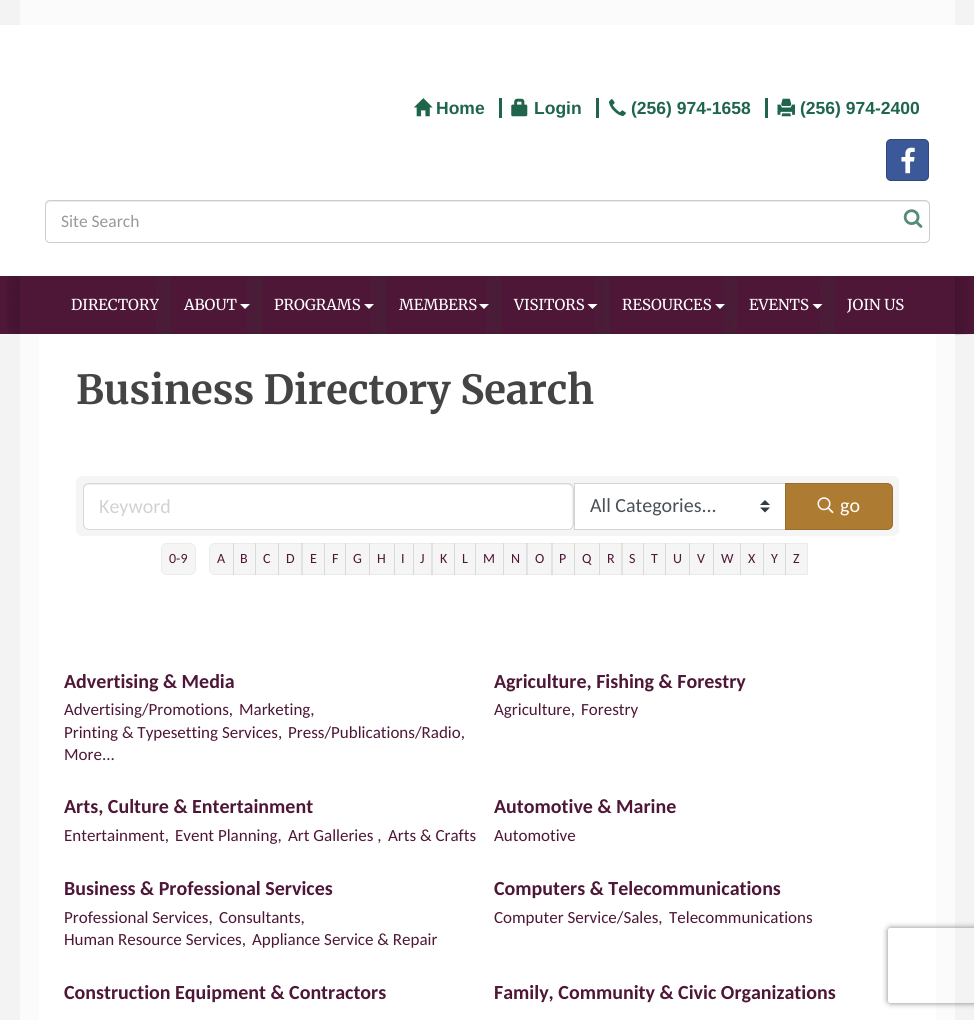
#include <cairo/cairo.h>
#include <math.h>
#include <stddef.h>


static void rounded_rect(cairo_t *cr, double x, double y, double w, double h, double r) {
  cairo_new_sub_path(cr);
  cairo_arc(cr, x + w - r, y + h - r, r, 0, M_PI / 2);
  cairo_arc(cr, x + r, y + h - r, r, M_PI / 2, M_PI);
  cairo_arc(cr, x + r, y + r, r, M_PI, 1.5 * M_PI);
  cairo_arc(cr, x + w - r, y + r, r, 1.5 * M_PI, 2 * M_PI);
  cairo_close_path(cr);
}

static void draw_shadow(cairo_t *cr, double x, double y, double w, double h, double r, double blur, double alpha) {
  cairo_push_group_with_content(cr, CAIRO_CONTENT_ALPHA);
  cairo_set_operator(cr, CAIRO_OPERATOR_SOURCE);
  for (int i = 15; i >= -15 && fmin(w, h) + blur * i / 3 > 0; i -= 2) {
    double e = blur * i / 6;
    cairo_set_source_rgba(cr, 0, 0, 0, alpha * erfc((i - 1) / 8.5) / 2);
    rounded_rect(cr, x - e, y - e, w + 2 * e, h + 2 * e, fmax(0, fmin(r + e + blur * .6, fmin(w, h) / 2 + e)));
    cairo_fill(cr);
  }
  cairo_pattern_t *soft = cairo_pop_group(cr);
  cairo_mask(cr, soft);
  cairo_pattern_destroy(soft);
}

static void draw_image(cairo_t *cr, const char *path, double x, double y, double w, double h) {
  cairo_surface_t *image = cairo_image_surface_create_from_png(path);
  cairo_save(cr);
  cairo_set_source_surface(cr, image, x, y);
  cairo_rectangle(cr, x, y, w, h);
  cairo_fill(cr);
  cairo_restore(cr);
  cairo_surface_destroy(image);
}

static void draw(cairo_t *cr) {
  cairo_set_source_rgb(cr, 243 / 255.0, 243 / 255.0, 243 / 255.0);
  cairo_paint(cr);
  cairo_set_source_rgb(cr, 251 / 255.0, 251 / 255.0, 251 / 255.0);
  cairo_rectangle(cr, 20, 0, 935, 25);
  cairo_fill(cr);
  cairo_set_source_rgb(cr, 1, 1, 1);
  cairo_rectangle(cr, 0, 25, 974, 251);
  cairo_fill(cr);
  draw_image(cr, "images/1.png", 413, 98, 20, 19);
  cairo_set_source_rgb(cr, 31 / 255.0, 101 / 255.0, 75 / 255.0);
  cairo_rectangle(cr, 499, 98, 3, 20);
  cairo_fill(cr);
  draw_image(cr, "images/2.png", 511, 98, 17, 19);
  cairo_rectangle(cr, 596, 98, 3, 20);
  cairo_fill(cr);
  draw_image(cr, "images/3.png", 609, 99, 17, 17);
  cairo_rectangle(cr, 765, 98, 3, 20);
  cairo_fill(cr);
  draw_image(cr, "images/4.png", 777, 98, 18, 19);
  cairo_set_source_rgb(cr, 59 / 255.0, 89 / 255.0, 152 / 255.0);
  rounded_rect(cr, 886, 139, 43, 42, 5);
  cairo_fill(cr);
  rounded_rect(cr, 886.5, 139.5, 42, 41, 4.5);
  cairo_set_source_rgba(cr, 0, 0, 0, 0.2);
  cairo_set_line_width(cr, 1);
  cairo_stroke(cr);
  draw_image(cr, "images/5.png", 901, 147, 14, 27);
  cairo_set_source_rgb(cr, 236 / 255.0, 236 / 255.0, 236 / 255.0);
  cairo_new_path(cr);
  cairo_move_to(cr, 50, 202);
  cairo_line_to(cr, 925, 202);
  cairo_curve_to(cr, 927, 202, 929, 204, 929, 206);
  cairo_curve_to(cr, 929, 203, 928, 201, 925, 201);
  cairo_line_to(cr, 50, 201);
  cairo_curve_to(cr, 47, 201, 46, 203, 46, 206);
  cairo_curve_to(cr, 46, 204, 48, 202, 50, 202);
  cairo_close_path(cr);
  cairo_fill(cr);
  rounded_rect(cr, 45.5, 200.5, 884, 42, 4.5);
  cairo_set_source_rgb(cr, 204 / 255.0, 204 / 255.0, 204 / 255.0);
  cairo_stroke(cr);
  draw_image(cr, "images/6.png", 903, 209, 20, 19);
  cairo_set_source_rgb(cr, 78 / 255.0, 23 / 255.0, 55 / 255.0);
  cairo_rectangle(cr, 0, 276, 974, 58);
  cairo_fill(cr);
  draw_image(cr, "images/7.png", 7, 276, 13, 58);
  draw_image(cr, "images/8.png", 156, 276, 15, 58);
  draw_image(cr, "images/9.png", 247, 276, 15, 58);
  cairo_set_source_rgb(cr, 1, 1, 1);
  cairo_new_path(cr);
  cairo_move_to(cr, 240, 304);
  cairo_line_to(cr, 250, 304);
  cairo_line_to(cr, 245, 309);
  cairo_close_path(cr);
  cairo_fill(cr);
  draw_image(cr, "images/8.png", 371, 276, 15, 58);
  cairo_new_path(cr);
  cairo_move_to(cr, 364, 304);
  cairo_line_to(cr, 374, 304);
  cairo_line_to(cr, 369, 309);
  cairo_close_path(cr);
  cairo_fill(cr);
  draw_image(cr, "images/10.png", 486, 276, 15, 58);
  cairo_new_path(cr);
  cairo_move_to(cr, 479, 304);
  cairo_line_to(cr, 489, 304);
  cairo_line_to(cr, 484, 309);
  cairo_close_path(cr);
  cairo_fill(cr);
  draw_image(cr, "images/11.png", 595, 276, 15, 58);
  cairo_new_path(cr);
  cairo_move_to(cr, 587.5, 304);
  cairo_line_to(cr, 597.5, 304);
  cairo_line_to(cr, 592.5, 309);
  cairo_close_path(cr);
  cairo_fill(cr);
  draw_image(cr, "images/12.png", 723, 276, 14, 58);
  cairo_new_path(cr);
  cairo_move_to(cr, 715, 304);
  cairo_line_to(cr, 725, 304);
  cairo_line_to(cr, 720, 309);
  cairo_close_path(cr);
  cairo_fill(cr);
  draw_image(cr, "images/11.png", 820, 276, 15, 58);
  cairo_new_path(cr);
  cairo_move_to(cr, 812.5, 304);
  cairo_line_to(cr, 822.5, 304);
  cairo_line_to(cr, 817.5, 309);
  cairo_close_path(cr);
  cairo_fill(cr);
  draw_image(cr, "images/13.png", 955, 277, 17, 58);
  cairo_set_source_rgb(cr, 251 / 255.0, 251 / 255.0, 251 / 255.0);
  cairo_rectangle(cr, 20, 334, 935, 686);
  cairo_fill(cr);
  cairo_set_source_rgb(cr, 1, 1, 1);
  cairo_rectangle(cr, 39, 334, 897, 686);
  cairo_fill(cr);
  cairo_set_source_rgb(cr, 245 / 255.0, 245 / 255.0, 245 / 255.0);
  rounded_rect(cr, 76, 476, 823, 60, 6);
  cairo_fill(cr);
  cairo_set_source_rgb(cr, 1, 1, 1);
  rounded_rect(cr, 84, 484, 489, 45, 5);
  cairo_fill(cr);
  cairo_set_source_rgba(cr, 0, 0, 0, 0.07);
  cairo_new_path(cr);
  cairo_move_to(cr, 89, 485);
  cairo_line_to(cr, 568, 485);
  cairo_curve_to(cr, 570, 485, 572, 487, 572, 490);
  cairo_line_to(cr, 572, 525);
  cairo_line_to(cr, 571, 528);
  cairo_line_to(cr, 573, 525);
  cairo_line_to(cr, 573, 488);
  cairo_line_to(cr, 572, 486);
  cairo_curve_to(cr, 571, 485, 570, 484, 569, 484);
  cairo_line_to(cr, 88, 484);
  cairo_curve_to(cr, 85, 485, 84, 487, 84, 490);
  cairo_curve_to(cr, 84, 487, 86, 485, 89, 485);
  cairo_close_path(cr);
  cairo_fill(cr);
  rounded_rect(cr, 83.5, 483.5, 490, 46, 5.5);
  cairo_set_source_rgba(cr, 0, 0, 0, 0.12);
  cairo_stroke(cr);
  cairo_set_source_rgb(cr, 1, 1, 1);
  cairo_rectangle(cr, 575, 484, 210, 45);
  cairo_fill(cr);
  draw_image(cr, "images/14.png", 760, 500, 10, 13);
  cairo_rectangle(cr, 574.5, 483.5, 211, 46);
  cairo_set_source_rgb(cr, 206 / 255.0, 212 / 255.0, 218 / 255.0);
  cairo_stroke(cr);
  cairo_set_source_rgb(cr, 173 / 255.0, 123 / 255.0, 49 / 255.0);
  cairo_new_path(cr);
  cairo_move_to(cr, 785, 483);
  cairo_line_to(cr, 887, 483);
  cairo_curve_to(cr, 890.5, 483, 893, 485.5, 893, 489);
  cairo_line_to(cr, 893, 524);
  cairo_curve_to(cr, 893, 527.5, 890.5, 530, 887, 530);
  cairo_line_to(cr, 785, 530);
  cairo_close_path(cr);
  cairo_fill(cr);
  cairo_new_path(cr);
  cairo_move_to(cr, 785.5, 483.5);
  cairo_line_to(cr, 887, 483.5);
  cairo_curve_to(cr, 890, 483.5, 892.5, 486, 892.5, 489);
  cairo_line_to(cr, 892.5, 524);
  cairo_curve_to(cr, 892.5, 527, 890, 529.5, 887, 529.5);
  cairo_line_to(cr, 785.5, 529.5);
  cairo_close_path(cr);
  cairo_set_source_rgba(cr, 0, 0, 0, 0.12);
  cairo_stroke(cr);
  draw_image(cr, "images/15.png", 817, 497, 17, 17);
  cairo_set_source_rgb(cr, 245 / 255.0, 245 / 255.0, 245 / 255.0);
  rounded_rect(cr, 161.5, 543.5, 34, 31, 5.5);
  cairo_fill_preserve(cr);
  cairo_set_source_rgb(cr, 235 / 255.0, 235 / 255.0, 235 / 255.0);
  cairo_stroke(cr);
  cairo_set_source_rgb(cr, 245 / 255.0, 245 / 255.0, 245 / 255.0);
  cairo_new_path(cr);
  cairo_move_to(cr, 215, 543.5);
  cairo_line_to(cr, 233.5, 543.5);
  cairo_line_to(cr, 233.5, 574.5);
  cairo_line_to(cr, 215, 574.5);
  cairo_curve_to(cr, 212, 574.5, 209.5, 572, 209.5, 569);
  cairo_line_to(cr, 209.5, 549);
  cairo_curve_to(cr, 209.5, 546, 212, 543.5, 215, 543.5);
  cairo_close_path(cr);
  cairo_fill_preserve(cr);
  cairo_set_source_rgb(cr, 235 / 255.0, 235 / 255.0, 235 / 255.0);
  cairo_stroke(cr);
  cairo_set_source_rgba(cr, 0, 0, 0, 0.04);
  cairo_rectangle(cr, 233, 543, 23, 32);
  cairo_fill(cr);
  cairo_rectangle(cr, 233.5, 543.5, 22, 31);
  cairo_stroke(cr);
  cairo_rectangle(cr, 255, 543, 24, 32);
  cairo_fill(cr);
  cairo_rectangle(cr, 255.5, 543.5, 23, 31);
  cairo_stroke(cr);
  cairo_rectangle(cr, 278, 543, 25, 32);
  cairo_fill(cr);
  cairo_rectangle(cr, 278.5, 543.5, 24, 31);
  cairo_stroke(cr);
  cairo_rectangle(cr, 301, 543, 24, 32);
  cairo_fill(cr);
  cairo_rectangle(cr, 301.5, 543.5, 23, 31);
  cairo_stroke(cr);
  cairo_rectangle(cr, 324, 543, 22, 32);
  cairo_fill(cr);
  cairo_rectangle(cr, 324.5, 543.5, 21, 31);
  cairo_stroke(cr);
  cairo_rectangle(cr, 345, 543, 25, 32);
  cairo_fill(cr);
  cairo_rectangle(cr, 345.5, 543.5, 24, 31);
  cairo_stroke(cr);
  cairo_rectangle(cr, 369, 543, 26, 32);
  cairo_fill(cr);
  cairo_rectangle(cr, 369.5, 543.5, 25, 31);
  cairo_stroke(cr);
  cairo_rectangle(cr, 394, 543, 20, 32);
  cairo_fill(cr);
  cairo_rectangle(cr, 394.5, 543.5, 19, 31);
  cairo_stroke(cr);
  cairo_rectangle(cr, 413, 543, 20, 32);
  cairo_fill(cr);
  cairo_rectangle(cr, 413.5, 543.5, 19, 31);
  cairo_stroke(cr);
  cairo_rectangle(cr, 431, 543, 24, 32);
  cairo_fill(cr);
  cairo_rectangle(cr, 431.5, 543.5, 23, 31);
  cairo_stroke(cr);
  cairo_rectangle(cr, 454, 543, 22, 32);
  cairo_fill(cr);
  cairo_rectangle(cr, 454.5, 543.5, 21, 31);
  cairo_stroke(cr);
  cairo_rectangle(cr, 475, 543, 29, 32);
  cairo_fill(cr);
  cairo_rectangle(cr, 475.5, 543.5, 28, 31);
  cairo_stroke(cr);
  cairo_rectangle(cr, 503, 543, 25, 32);
  cairo_fill(cr);
  cairo_rectangle(cr, 503.5, 543.5, 24, 31);
  cairo_stroke(cr);
  cairo_rectangle(cr, 526, 543, 27, 32);
  cairo_fill(cr);
  cairo_rectangle(cr, 526.5, 543.5, 26, 31);
  cairo_stroke(cr);
  cairo_rectangle(cr, 551, 543, 24, 32);
  cairo_fill(cr);
  cairo_rectangle(cr, 551.5, 543.5, 23, 31);
  cairo_stroke(cr);
  cairo_rectangle(cr, 574, 543, 26, 32);
  cairo_fill(cr);
  cairo_rectangle(cr, 574.5, 543.5, 25, 31);
  cairo_stroke(cr);
  cairo_rectangle(cr, 599, 543, 24, 32);
  cairo_fill(cr);
  cairo_rectangle(cr, 599.5, 543.5, 23, 31);
  cairo_stroke(cr);
  cairo_rectangle(cr, 621, 543, 23, 32);
  cairo_fill(cr);
  cairo_rectangle(cr, 621.5, 543.5, 22, 31);
  cairo_stroke(cr);
  cairo_rectangle(cr, 643, 543, 23, 32);
  cairo_fill(cr);
  cairo_rectangle(cr, 643.5, 543.5, 22, 31);
  cairo_stroke(cr);
  cairo_rectangle(cr, 665, 543, 25, 32);
  cairo_fill(cr);
  cairo_rectangle(cr, 665.5, 543.5, 24, 31);
  cairo_stroke(cr);
  cairo_rectangle(cr, 689, 543, 25, 32);
  cairo_fill(cr);
  cairo_rectangle(cr, 689.5, 543.5, 24, 31);
  cairo_stroke(cr);
  cairo_rectangle(cr, 713, 543, 28, 32);
  cairo_fill(cr);
  cairo_rectangle(cr, 713.5, 543.5, 27, 31);
  cairo_stroke(cr);
  cairo_rectangle(cr, 740, 543, 24, 32);
  cairo_fill(cr);
  cairo_rectangle(cr, 740.5, 543.5, 23, 31);
  cairo_stroke(cr);
  cairo_rectangle(cr, 763, 543, 23, 32);
  cairo_fill(cr);
  cairo_rectangle(cr, 763.5, 543.5, 22, 31);
  cairo_stroke(cr);
  cairo_rectangle(cr, 785, 543, 23, 32);
  cairo_fill(cr);
  cairo_rectangle(cr, 785.5, 543.5, 22, 31);
  cairo_stroke(cr);
  cairo_save(cr);
  cairo_set_fill_rule(cr, CAIRO_FILL_RULE_EVEN_ODD);
  cairo_new_path(cr);
  cairo_move_to(cr, 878, 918);
  cairo_line_to(cr, 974, 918);
  cairo_line_to(cr, 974, 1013);
  cairo_line_to(cr, 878, 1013);
  cairo_close_path(cr);
  cairo_move_to(cr, 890.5, 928);
  cairo_line_to(cr, 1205.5, 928);
  cairo_curve_to(cr, 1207, 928, 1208, 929, 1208, 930.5);
  cairo_line_to(cr, 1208, 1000.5);
  cairo_curve_to(cr, 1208, 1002, 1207, 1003, 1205.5, 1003);
  cairo_line_to(cr, 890.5, 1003);
  cairo_curve_to(cr, 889, 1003, 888, 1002, 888, 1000.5);
  cairo_line_to(cr, 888, 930.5);
  cairo_curve_to(cr, 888, 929, 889, 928, 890.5, 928);
  cairo_close_path(cr);
  cairo_clip(cr);
  cairo_set_source_rgb(cr, 128 / 255.0, 128 / 255.0, 128 / 255.0);
  draw_shadow(cr, 888, 928, 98, 75, 2.5, 3, 1);
  cairo_restore(cr);
  cairo_select_font_face(cr, "Liberation Sans", CAIRO_FONT_SLANT_NORMAL, CAIRO_FONT_WEIGHT_BOLD);
  cairo_set_font_size(cr, 17.5);
  cairo_set_source_rgb(cr, 31 / 255.0, 101 / 255.0, 75 / 255.0);
  cairo_move_to(cr, 436, 114);
  cairo_show_text(cr, "Home");
  cairo_move_to(cr, 534, 114);
  cairo_show_text(cr, "Login");
  cairo_move_to(cr, 631, 114);
  cairo_show_text(cr, "(256) 974-1658");
  cairo_move_to(cr, 800, 114);
  cairo_show_text(cr, "(256) 974-2400");
  cairo_select_font_face(cr, "Carlito", CAIRO_FONT_SLANT_NORMAL, CAIRO_FONT_WEIGHT_NORMAL);
  cairo_set_source_rgb(cr, 153 / 255.0, 153 / 255.0, 153 / 255.0);
  cairo_move_to(cr, 61, 227);
  cairo_show_text(cr, "Site Search");
  cairo_select_font_face(cr, "Merriweather", CAIRO_FONT_SLANT_NORMAL, CAIRO_FONT_WEIGHT_NORMAL);
  cairo_set_font_size(cr, 15);
  cairo_set_source_rgb(cr, 1, 1, 1);
  cairo_move_to(cr, 71, 310);
  cairo_show_text(cr, "DIRECTORY");
  cairo_move_to(cr, 184, 310);
  cairo_show_text(cr, "ABOUT");
  cairo_move_to(cr, 274, 310);
  cairo_show_text(cr, "PROGRAMS");
  cairo_move_to(cr, 399, 310);
  cairo_show_text(cr, "MEMBERS");
  cairo_move_to(cr, 514, 310);
  cairo_show_text(cr, "VISITORS");
  cairo_move_to(cr, 622, 310);
  cairo_show_text(cr, "RESOURCES");
  cairo_move_to(cr, 749, 310);
  cairo_show_text(cr, "EVENTS");
  cairo_move_to(cr, 847, 310);
  cairo_show_text(cr, "JOIN US");
  cairo_select_font_face(cr, "Merriweather", CAIRO_FONT_SLANT_NORMAL, CAIRO_FONT_WEIGHT_BOLD);
  cairo_set_font_size(cr, 40);
  cairo_set_source_rgb(cr, 68 / 255.0, 68 / 255.0, 68 / 255.0);
  cairo_move_to(cr, 76, 404);
  cairo_show_text(cr, "Business Directory Search");
  cairo_select_font_face(cr, "Carlito", CAIRO_FONT_SLANT_NORMAL, CAIRO_FONT_WEIGHT_NORMAL);
  cairo_set_font_size(cr, 20);
  cairo_set_source_rgb(cr, 210 / 255.0, 210 / 255.0, 210 / 255.0);
  cairo_move_to(cr, 99, 513);
  cairo_show_text(cr, "Keyword");
  cairo_set_source_rgb(cr, 73 / 255.0, 80 / 255.0, 87 / 255.0);
  cairo_move_to(cr, 590, 512);
  cairo_show_text(cr, "All Categories...");
  cairo_set_source_rgb(cr, 1, 1, 1);
  cairo_move_to(cr, 840, 512);
  cairo_show_text(cr, "go");
  cairo_set_font_size(cr, 14);
  cairo_set_source_rgb(cr, 78 / 255.0, 23 / 255.0, 55 / 255.0);
  cairo_move_to(cr, 169, 563);
  cairo_show_text(cr, "0-9");
  cairo_move_to(cr, 217, 563);
  cairo_show_text(cr, "A");
  cairo_move_to(cr, 240, 563);
  cairo_show_text(cr, "B");
  cairo_move_to(cr, 263, 563);
  cairo_show_text(cr, "C");
  cairo_move_to(cr, 286, 563);
  cairo_show_text(cr, "D");
  cairo_move_to(cr, 310, 563);
  cairo_show_text(cr, "E");
  cairo_move_to(cr, 332, 563);
  cairo_show_text(cr, "F");
  cairo_move_to(cr, 353, 563);
  cairo_show_text(cr, "G");
  cairo_move_to(cr, 377, 563);
  cairo_show_text(cr, "H");
  cairo_move_to(cr, 401, 563);
  cairo_show_text(cr, "I");
  cairo_move_to(cr, 420, 563);
  cairo_show_text(cr, "J");
  cairo_move_to(cr, 440, 563);
  cairo_show_text(cr, "K");
  cairo_move_to(cr, 462, 563);
  cairo_show_text(cr, "L");
  cairo_move_to(cr, 483, 563);
  cairo_show_text(cr, "M");
  cairo_move_to(cr, 511, 563);
  cairo_show_text(cr, "N");
  cairo_move_to(cr, 535, 563);
  cairo_show_text(cr, "O");
  cairo_move_to(cr, 559, 563);
  cairo_show_text(cr, "P");
  cairo_move_to(cr, 582, 563);
  cairo_show_text(cr, "Q");
  cairo_move_to(cr, 607, 563);
  cairo_show_text(cr, "R");
  cairo_move_to(cr, 629, 563);
  cairo_show_text(cr, "S");
  cairo_move_to(cr, 651, 563);
  cairo_show_text(cr, "T");
  cairo_move_to(cr, 673, 563);
  cairo_show_text(cr, "U");
  cairo_move_to(cr, 697, 563);
  cairo_show_text(cr, "V");
  cairo_move_to(cr, 721, 563);
  cairo_show_text(cr, "W");
  cairo_move_to(cr, 748, 563);
  cairo_show_text(cr, "X");
  cairo_move_to(cr, 771, 563);
  cairo_show_text(cr, "Y");
  cairo_move_to(cr, 793, 563);
  cairo_show_text(cr, "Z");
  cairo_select_font_face(cr, "Carlito", CAIRO_FONT_SLANT_NORMAL, CAIRO_FONT_WEIGHT_BOLD);
  cairo_set_font_size(cr, 20);
  cairo_move_to(cr, 64, 688);
  cairo_show_text(cr, "Advertising & Media");
  cairo_select_font_face(cr, "Carlito", CAIRO_FONT_SLANT_NORMAL, CAIRO_FONT_WEIGHT_NORMAL);
  cairo_set_font_size(cr, 17);
  cairo_move_to(cr, 64, 715);
  cairo_show_text(cr, "Advertising/Promotions,");
  cairo_move_to(cr, 239, 715);
  cairo_show_text(cr, "Marketing,");
  cairo_move_to(cr, 64, 738);
  cairo_show_text(cr, "Printing & Typesetting Services,");
  cairo_move_to(cr, 288, 738);
  cairo_show_text(cr, "Press/Publications/Radio,");
  cairo_move_to(cr, 64, 760);
  cairo_show_text(cr, "More...");
  cairo_select_font_face(cr, "Carlito", CAIRO_FONT_SLANT_NORMAL, CAIRO_FONT_WEIGHT_BOLD);
  cairo_set_font_size(cr, 20);
  cairo_move_to(cr, 494, 688);
  cairo_show_text(cr, "Agriculture, Fishing & Forestry");
  cairo_select_font_face(cr, "Carlito", CAIRO_FONT_SLANT_NORMAL, CAIRO_FONT_WEIGHT_NORMAL);
  cairo_set_font_size(cr, 17);
  cairo_move_to(cr, 494, 715);
  cairo_show_text(cr, "Agriculture,");
  cairo_move_to(cr, 581, 715);
  cairo_show_text(cr, "Forestry");
  cairo_select_font_face(cr, "Carlito", CAIRO_FONT_SLANT_NORMAL, CAIRO_FONT_WEIGHT_BOLD);
  cairo_set_font_size(cr, 20);
  cairo_move_to(cr, 64, 813);
  cairo_show_text(cr, "Arts, Culture & Entertainment");
  cairo_select_font_face(cr, "Carlito", CAIRO_FONT_SLANT_NORMAL, CAIRO_FONT_WEIGHT_NORMAL);
  cairo_set_font_size(cr, 17);
  cairo_move_to(cr, 64, 841);
  cairo_show_text(cr, "Entertainment,");
  cairo_move_to(cr, 175, 841);
  cairo_show_text(cr, "Event Planning,");
  cairo_move_to(cr, 288, 841);
  cairo_show_text(cr, "Art Galleries ,");
  cairo_move_to(cr, 388, 841);
  cairo_show_text(cr, "Arts & Crafts");
  cairo_select_font_face(cr, "Carlito", CAIRO_FONT_SLANT_NORMAL, CAIRO_FONT_WEIGHT_BOLD);
  cairo_set_font_size(cr, 20);
  cairo_move_to(cr, 494, 813);
  cairo_show_text(cr, "Automotive & Marine");
  cairo_select_font_face(cr, "Carlito", CAIRO_FONT_SLANT_NORMAL, CAIRO_FONT_WEIGHT_NORMAL);
  cairo_set_font_size(cr, 17);
  cairo_move_to(cr, 494, 841);
  cairo_show_text(cr, "Automotive");
  cairo_select_font_face(cr, "Carlito", CAIRO_FONT_SLANT_NORMAL, CAIRO_FONT_WEIGHT_BOLD);
  cairo_set_font_size(cr, 20);
  cairo_move_to(cr, 64, 895);
  cairo_show_text(cr, "Business & Professional Services");
  cairo_select_font_face(cr, "Carlito", CAIRO_FONT_SLANT_NORMAL, CAIRO_FONT_WEIGHT_NORMAL);
  cairo_set_font_size(cr, 17);
  cairo_move_to(cr, 64, 923);
  cairo_show_text(cr, "Professional Services,");
  cairo_move_to(cr, 219, 923);
  cairo_show_text(cr, "Consultants,");
  cairo_move_to(cr, 64, 945);
  cairo_show_text(cr, "Human Resource Services,");
  cairo_move_to(cr, 252, 945);
  cairo_show_text(cr, "Appliance Service & Repair");
  cairo_select_font_face(cr, "Carlito", CAIRO_FONT_SLANT_NORMAL, CAIRO_FONT_WEIGHT_BOLD);
  cairo_set_font_size(cr, 20);
  cairo_move_to(cr, 494, 895);
  cairo_show_text(cr, "Computers & Telecommunications");
  cairo_select_font_face(cr, "Carlito", CAIRO_FONT_SLANT_NORMAL, CAIRO_FONT_WEIGHT_NORMAL);
  cairo_set_font_size(cr, 17);
  cairo_move_to(cr, 494, 923);
  cairo_show_text(cr, "Computer Service/Sales,");
  cairo_move_to(cr, 669, 923);
  cairo_show_text(cr, "Telecommunications");
  cairo_select_font_face(cr, "Carlito", CAIRO_FONT_SLANT_NORMAL, CAIRO_FONT_WEIGHT_BOLD);
  cairo_set_font_size(cr, 20);
  cairo_move_to(cr, 64, 999);
  cairo_show_text(cr, "Construction Equipment & Contractors");
  cairo_move_to(cr, 494, 999);
  cairo_show_text(cr, "Family, Community & Civic Organizations");
}

int main(void) {
  cairo_surface_t *surface = cairo_image_surface_create(CAIRO_FORMAT_RGB24, 974, 1020);
  cairo_t *cr = cairo_create(surface);
  cairo_font_options_t *options = cairo_font_options_create();
  cairo_font_options_set_hint_metrics(options, CAIRO_HINT_METRICS_OFF);
  cairo_font_options_set_hint_style(options, CAIRO_HINT_STYLE_NONE);
  cairo_set_font_options(cr, options);
  cairo_set_miter_limit(cr, 4);
  draw(cr);
  cairo_surface_write_to_png(surface, "out.png");
  cairo_font_options_destroy(options);
  cairo_destroy(cr);
  cairo_surface_destroy(surface);
  return 0;
}
